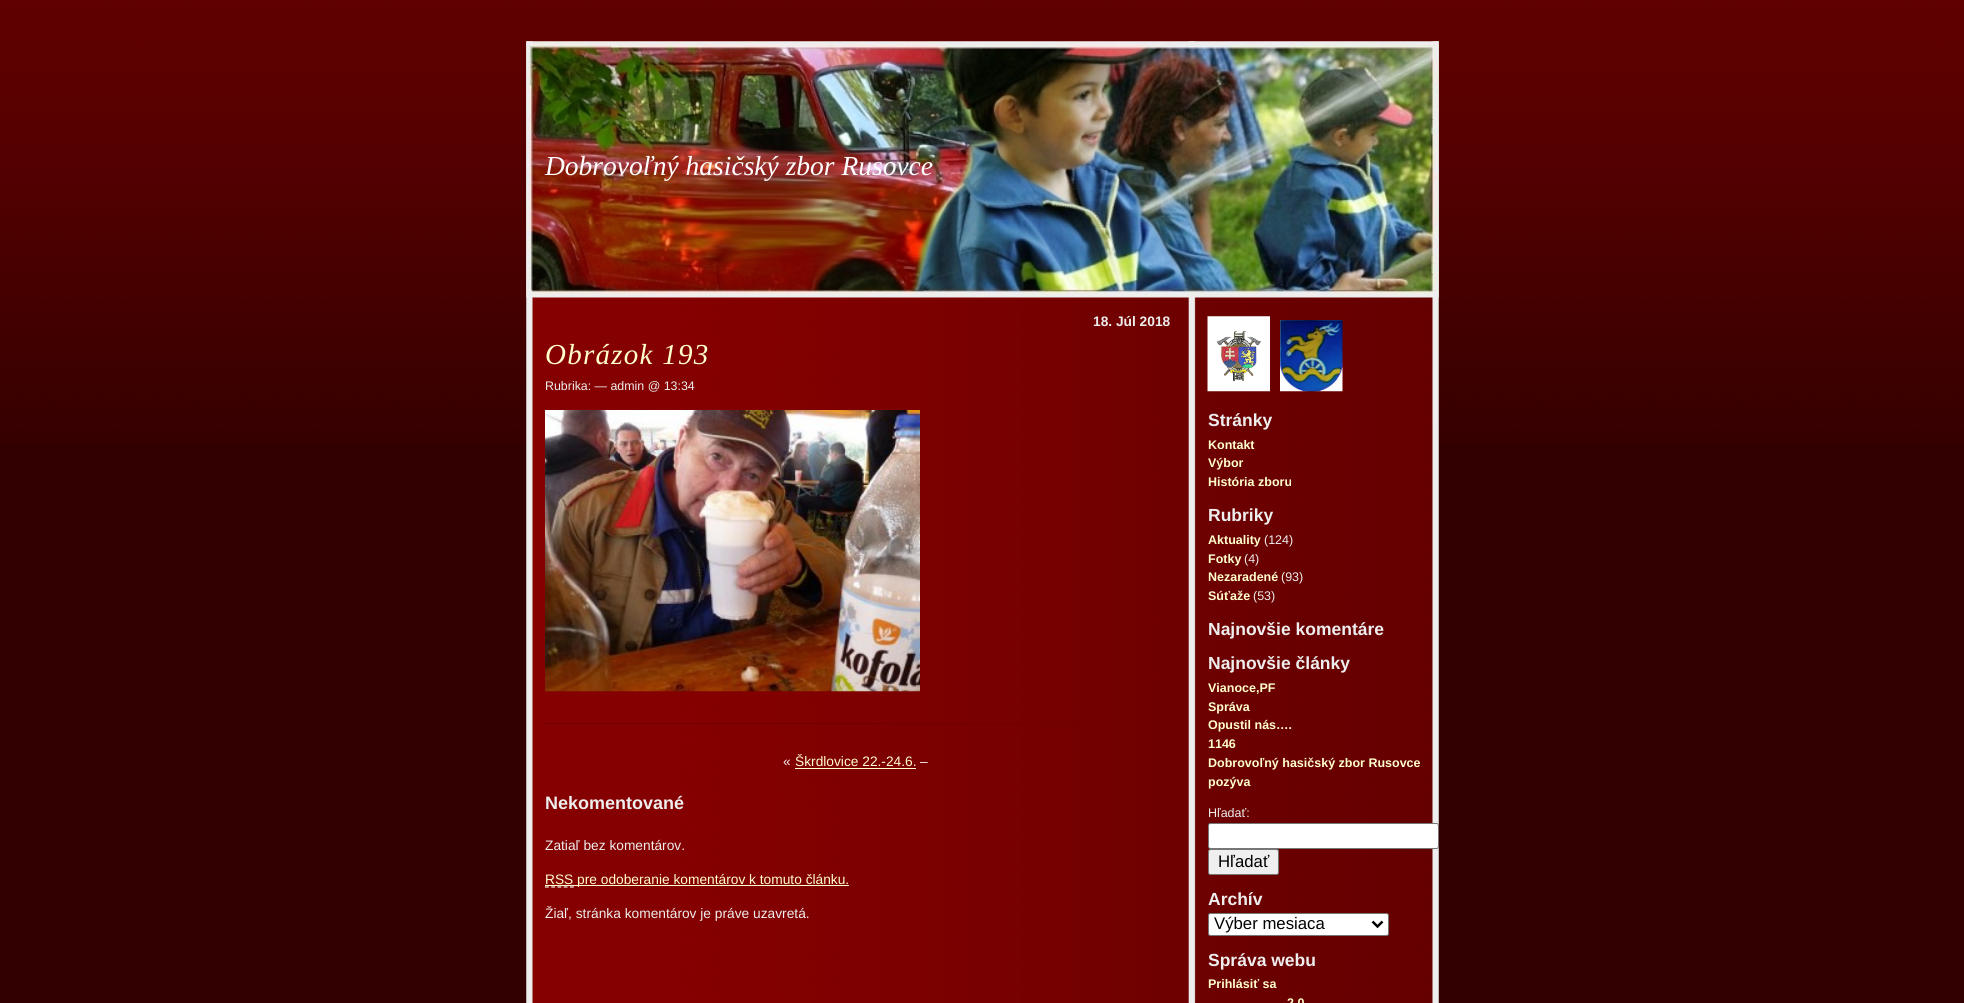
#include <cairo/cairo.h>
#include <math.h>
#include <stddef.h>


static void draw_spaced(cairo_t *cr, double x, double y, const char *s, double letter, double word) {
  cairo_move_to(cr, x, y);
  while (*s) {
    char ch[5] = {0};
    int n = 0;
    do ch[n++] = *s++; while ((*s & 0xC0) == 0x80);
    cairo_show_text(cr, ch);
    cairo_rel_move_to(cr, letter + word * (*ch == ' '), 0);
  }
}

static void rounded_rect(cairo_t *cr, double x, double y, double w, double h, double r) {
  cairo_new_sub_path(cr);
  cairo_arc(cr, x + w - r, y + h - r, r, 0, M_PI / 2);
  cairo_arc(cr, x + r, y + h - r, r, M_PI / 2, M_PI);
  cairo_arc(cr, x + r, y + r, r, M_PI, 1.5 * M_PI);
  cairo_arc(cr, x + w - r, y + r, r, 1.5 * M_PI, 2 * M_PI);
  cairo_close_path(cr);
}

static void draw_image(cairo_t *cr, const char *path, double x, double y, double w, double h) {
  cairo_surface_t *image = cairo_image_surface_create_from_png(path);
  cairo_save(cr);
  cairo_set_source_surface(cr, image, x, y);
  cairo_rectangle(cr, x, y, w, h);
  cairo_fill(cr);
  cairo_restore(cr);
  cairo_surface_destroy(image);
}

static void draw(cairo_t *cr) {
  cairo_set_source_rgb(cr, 50 / 255.0, 0, 0);
  cairo_paint(cr);
  draw_image(cr, "images/1.png", 0, 0, 1964, 444);
  draw_image(cr, "images/2.png", 526, 41, 913, 962);
  draw_image(cr, "images/3.png", 526, 41, 913, 257);
  draw_image(cr, "images/4.png", 545, 410, 375, 282);
  cairo_set_source_rgb(cr, 112 / 255.0, 0, 0);
  cairo_rectangle(cr, 545, 723, 555, 1);
  cairo_fill(cr);
  cairo_set_source_rgb(cr, 1, 1, 204 / 255.0);
  cairo_rectangle(cr, 795, 768, 121, 1);
  cairo_fill(cr);
  cairo_new_path(cr);
  cairo_move_to(cr, 545, 887);
  cairo_line_to(cr, 574, 887);
  cairo_set_source_rgb(cr, 238 / 255.0, 238 / 255.0, 238 / 255.0);
  cairo_set_line_width(cr, 1.2);
  cairo_set_dash(cr, (double[]){3.75, 2.5}, 2, 0);
  cairo_stroke(cr);
  cairo_new_path(cr);
  cairo_move_to(cr, 545, 885.5);
  cairo_line_to(cr, 573.5, 885.5);
  cairo_set_source_rgb(cr, 1, 1, 204 / 255.0);
  cairo_set_dash(cr, (double[]){1.25, 1.25}, 2, 0);
  cairo_stroke(cr);
  cairo_rectangle(cr, 545, 885, 304, 1);
  cairo_fill(cr);
  draw_image(cr, "images/5.png", 1207, 316, 63, 76);
  draw_image(cr, "images/6.png", 1280, 320, 63, 72);
  cairo_set_source_rgb(cr, 1, 1, 1);
  rounded_rect(cr, 1208.5, 823.5, 230, 25, 2);
  cairo_fill_preserve(cr);
  cairo_set_source_rgb(cr, 118 / 255.0, 118 / 255.0, 118 / 255.0);
  cairo_set_line_width(cr, 1);
  cairo_set_dash(cr, NULL, 0, 0);
  cairo_stroke(cr);
  cairo_set_source_rgb(cr, 239 / 255.0, 239 / 255.0, 239 / 255.0);
  rounded_rect(cr, 1208.5, 849.5, 70, 25, 2);
  cairo_fill_preserve(cr);
  cairo_set_source_rgb(cr, 118 / 255.0, 118 / 255.0, 118 / 255.0);
  cairo_stroke(cr);
  cairo_set_source_rgb(cr, 1, 1, 1);
  rounded_rect(cr, 1208.5, 913.5, 180, 22, 2);
  cairo_fill_preserve(cr);
  cairo_set_source_rgb(cr, 118 / 255.0, 118 / 255.0, 118 / 255.0);
  cairo_stroke(cr);
  cairo_new_path(cr);
  cairo_move_to(cr, 1372.5, 921.5);
  cairo_line_to(cr, 1377.5, 926.5);
  cairo_line_to(cr, 1382.5, 921.5);
  cairo_set_source_rgb(cr, 0, 0, 0);
  cairo_set_line_width(cr, 2.5);
  cairo_stroke(cr);
  cairo_select_font_face(cr, "Liberation Serif", CAIRO_FONT_SLANT_ITALIC, CAIRO_FONT_WEIGHT_NORMAL);
  cairo_set_font_size(cr, 27.5);
  cairo_set_source_rgb(cr, 1, 1, 1);
  cairo_move_to(cr, 545, 175);
  cairo_show_text(cr, "Dobrovoľný hasičský zbor Rusovce");
  cairo_select_font_face(cr, "Liberation Sans", CAIRO_FONT_SLANT_NORMAL, CAIRO_FONT_WEIGHT_BOLD);
  cairo_set_font_size(cr, 13.75);
  cairo_set_source_rgb(cr, 238 / 255.0, 238 / 255.0, 238 / 255.0);
  cairo_move_to(cr, 1093, 326);
  cairo_show_text(cr, "18. Júl 2018");
  cairo_select_font_face(cr, "Liberation Serif", CAIRO_FONT_SLANT_ITALIC, CAIRO_FONT_WEIGHT_NORMAL);
  cairo_set_font_size(cr, 29);
  cairo_set_source_rgb(cr, 1, 1, 204 / 255.0);
  draw_spaced(cr, 545, 364, "Obrázok 193", 1.25, 0);
  cairo_select_font_face(cr, "Liberation Sans", CAIRO_FONT_SLANT_NORMAL, CAIRO_FONT_WEIGHT_NORMAL);
  cairo_set_font_size(cr, 12.4);
  cairo_set_source_rgb(cr, 238 / 255.0, 238 / 255.0, 238 / 255.0);
  cairo_move_to(cr, 545, 390);
  cairo_show_text(cr, "Rubrika: — admin @ 13:34");
  cairo_set_font_size(cr, 13.75);
  cairo_move_to(cr, 783, 766);
  cairo_show_text(cr, "«");
  cairo_set_source_rgb(cr, 1, 1, 204 / 255.0);
  cairo_move_to(cr, 795, 766);
  cairo_show_text(cr, "Škrdlovice 22.-24.6.");
  cairo_set_source_rgb(cr, 238 / 255.0, 238 / 255.0, 238 / 255.0);
  cairo_move_to(cr, 920, 766);
  cairo_show_text(cr, "–");
  cairo_select_font_face(cr, "Liberation Sans", CAIRO_FONT_SLANT_NORMAL, CAIRO_FONT_WEIGHT_BOLD);
  cairo_set_font_size(cr, 18);
  cairo_move_to(cr, 545, 809);
  cairo_show_text(cr, "Nekomentované");
  cairo_select_font_face(cr, "Liberation Sans", CAIRO_FONT_SLANT_NORMAL, CAIRO_FONT_WEIGHT_NORMAL);
  cairo_set_font_size(cr, 13.75);
  cairo_move_to(cr, 545, 850);
  cairo_show_text(cr, "Zatiaľ bez komentárov.");
  cairo_set_source_rgb(cr, 1, 1, 204 / 255.0);
  cairo_move_to(cr, 545, 884);
  cairo_show_text(cr, "RSS pre odoberanie komentárov k tomuto článku.");
  cairo_set_source_rgb(cr, 238 / 255.0, 238 / 255.0, 238 / 255.0);
  cairo_move_to(cr, 545, 918);
  cairo_show_text(cr, "Žiaľ, stránka komentárov je práve uzavretá.");
  cairo_select_font_face(cr, "Liberation Sans", CAIRO_FONT_SLANT_NORMAL, CAIRO_FONT_WEIGHT_BOLD);
  cairo_set_font_size(cr, 17.5);
  cairo_move_to(cr, 1208, 426);
  cairo_show_text(cr, "Stránky");
  cairo_set_font_size(cr, 12.5);
  cairo_set_source_rgb(cr, 1, 1, 204 / 255.0);
  cairo_move_to(cr, 1208, 449);
  cairo_show_text(cr, "Kontakt");
  cairo_move_to(cr, 1208, 467);
  cairo_show_text(cr, "Výbor");
  cairo_move_to(cr, 1208, 486);
  cairo_show_text(cr, "História zboru");
  cairo_set_font_size(cr, 17.5);
  cairo_set_source_rgb(cr, 238 / 255.0, 238 / 255.0, 238 / 255.0);
  cairo_move_to(cr, 1208, 521);
  cairo_show_text(cr, "Rubriky");
  cairo_set_font_size(cr, 12.5);
  cairo_set_source_rgb(cr, 1, 1, 204 / 255.0);
  cairo_move_to(cr, 1208, 544);
  cairo_show_text(cr, "Aktuality");
  cairo_select_font_face(cr, "Liberation Sans", CAIRO_FONT_SLANT_NORMAL, CAIRO_FONT_WEIGHT_NORMAL);
  cairo_set_source_rgb(cr, 238 / 255.0, 238 / 255.0, 238 / 255.0);
  cairo_move_to(cr, 1264, 544);
  cairo_show_text(cr, "(124)");
  cairo_select_font_face(cr, "Liberation Sans", CAIRO_FONT_SLANT_NORMAL, CAIRO_FONT_WEIGHT_BOLD);
  cairo_set_source_rgb(cr, 1, 1, 204 / 255.0);
  cairo_move_to(cr, 1208, 563);
  cairo_show_text(cr, "Fotky");
  cairo_select_font_face(cr, "Liberation Sans", CAIRO_FONT_SLANT_NORMAL, CAIRO_FONT_WEIGHT_NORMAL);
  cairo_set_source_rgb(cr, 238 / 255.0, 238 / 255.0, 238 / 255.0);
  cairo_move_to(cr, 1244, 563);
  cairo_show_text(cr, "(4)");
  cairo_select_font_face(cr, "Liberation Sans", CAIRO_FONT_SLANT_NORMAL, CAIRO_FONT_WEIGHT_BOLD);
  cairo_set_source_rgb(cr, 1, 1, 204 / 255.0);
  cairo_move_to(cr, 1208, 581);
  cairo_show_text(cr, "Nezaradené");
  cairo_select_font_face(cr, "Liberation Sans", CAIRO_FONT_SLANT_NORMAL, CAIRO_FONT_WEIGHT_NORMAL);
  cairo_set_source_rgb(cr, 238 / 255.0, 238 / 255.0, 238 / 255.0);
  cairo_move_to(cr, 1281, 581);
  cairo_show_text(cr, "(93)");
  cairo_select_font_face(cr, "Liberation Sans", CAIRO_FONT_SLANT_NORMAL, CAIRO_FONT_WEIGHT_BOLD);
  cairo_set_source_rgb(cr, 1, 1, 204 / 255.0);
  cairo_move_to(cr, 1208, 600);
  cairo_show_text(cr, "Súťaže");
  cairo_select_font_face(cr, "Liberation Sans", CAIRO_FONT_SLANT_NORMAL, CAIRO_FONT_WEIGHT_NORMAL);
  cairo_set_source_rgb(cr, 238 / 255.0, 238 / 255.0, 238 / 255.0);
  cairo_move_to(cr, 1253, 600);
  cairo_show_text(cr, "(53)");
  cairo_select_font_face(cr, "Liberation Sans", CAIRO_FONT_SLANT_NORMAL, CAIRO_FONT_WEIGHT_BOLD);
  cairo_set_font_size(cr, 17.5);
  cairo_move_to(cr, 1208, 635);
  cairo_show_text(cr, "Najnovšie komentáre");
  cairo_move_to(cr, 1208, 669);
  cairo_show_text(cr, "Najnovšie články");
  cairo_set_font_size(cr, 12.5);
  cairo_set_source_rgb(cr, 1, 1, 204 / 255.0);
  cairo_move_to(cr, 1208, 692);
  cairo_show_text(cr, "Vianoce,PF");
  cairo_move_to(cr, 1208, 711);
  cairo_show_text(cr, "Správa");
  cairo_move_to(cr, 1208, 729);
  cairo_show_text(cr, "Opustil nás….");
  cairo_move_to(cr, 1208, 748);
  cairo_show_text(cr, "1146");
  cairo_move_to(cr, 1208, 767);
  cairo_show_text(cr, "Dobrovoľný hasičský zbor Rusovce");
  cairo_move_to(cr, 1208, 786);
  cairo_show_text(cr, "pozýva");
  cairo_select_font_face(cr, "Liberation Sans", CAIRO_FONT_SLANT_NORMAL, CAIRO_FONT_WEIGHT_NORMAL);
  cairo_set_source_rgb(cr, 238 / 255.0, 238 / 255.0, 238 / 255.0);
  cairo_move_to(cr, 1208, 817);
  cairo_show_text(cr, "Hľadať:");
  cairo_set_font_size(cr, 16.75);
  cairo_set_source_rgb(cr, 0, 0, 0);
  cairo_move_to(cr, 1218, 867);
  cairo_show_text(cr, "Hľadať");
  cairo_select_font_face(cr, "Liberation Sans", CAIRO_FONT_SLANT_NORMAL, CAIRO_FONT_WEIGHT_BOLD);
  cairo_set_font_size(cr, 17.5);
  cairo_set_source_rgb(cr, 238 / 255.0, 238 / 255.0, 238 / 255.0);
  cairo_move_to(cr, 1208, 905);
  cairo_show_text(cr, "Archív");
  cairo_select_font_face(cr, "Liberation Sans", CAIRO_FONT_SLANT_NORMAL, CAIRO_FONT_WEIGHT_NORMAL);
  cairo_set_font_size(cr, 16.75);
  cairo_set_source_rgb(cr, 0, 0, 0);
  cairo_move_to(cr, 1214, 929);
  cairo_show_text(cr, "Výber mesiaca");
  cairo_select_font_face(cr, "Liberation Sans", CAIRO_FONT_SLANT_NORMAL, CAIRO_FONT_WEIGHT_BOLD);
  cairo_set_font_size(cr, 17.5);
  cairo_set_source_rgb(cr, 238 / 255.0, 238 / 255.0, 238 / 255.0);
  cairo_move_to(cr, 1208, 966);
  cairo_show_text(cr, "Správa webu");
  cairo_set_font_size(cr, 12.5);
  cairo_set_source_rgb(cr, 1, 1, 204 / 255.0);
  cairo_move_to(cr, 1208, 988);
  cairo_show_text(cr, "Prihlásiť sa");
  cairo_move_to(cr, 1287, 1007);
  cairo_show_text(cr, "2.0");
}

int main(void) {
  cairo_surface_t *surface = cairo_image_surface_create(CAIRO_FORMAT_RGB24, 1964, 1003);
  cairo_t *cr = cairo_create(surface);
  cairo_font_options_t *options = cairo_font_options_create();
  cairo_font_options_set_hint_metrics(options, CAIRO_HINT_METRICS_OFF);
  cairo_font_options_set_hint_style(options, CAIRO_HINT_STYLE_NONE);
  cairo_set_font_options(cr, options);
  cairo_set_miter_limit(cr, 4);
  draw(cr);
  cairo_surface_write_to_png(surface, "out.png");
  cairo_font_options_destroy(options);
  cairo_destroy(cr);
  cairo_surface_destroy(surface);
  return 0;
}
